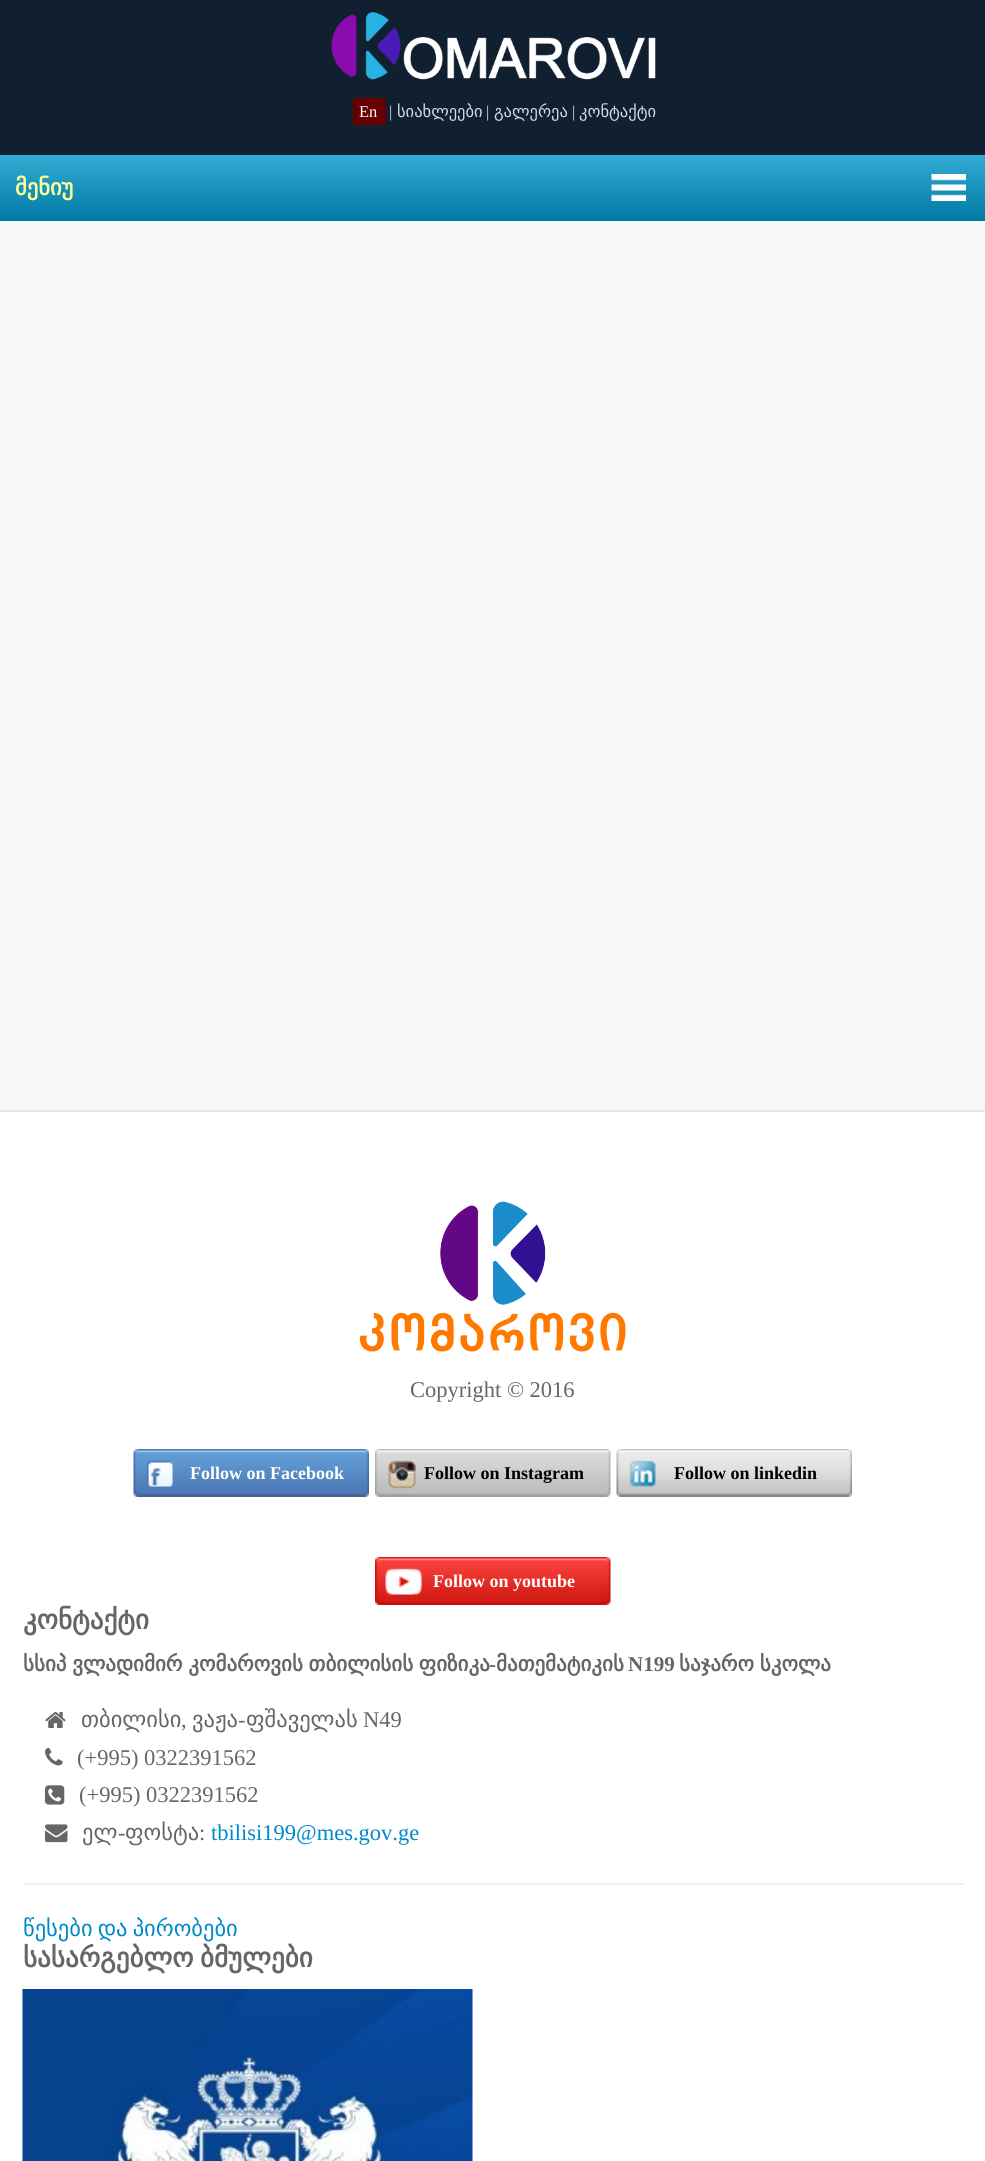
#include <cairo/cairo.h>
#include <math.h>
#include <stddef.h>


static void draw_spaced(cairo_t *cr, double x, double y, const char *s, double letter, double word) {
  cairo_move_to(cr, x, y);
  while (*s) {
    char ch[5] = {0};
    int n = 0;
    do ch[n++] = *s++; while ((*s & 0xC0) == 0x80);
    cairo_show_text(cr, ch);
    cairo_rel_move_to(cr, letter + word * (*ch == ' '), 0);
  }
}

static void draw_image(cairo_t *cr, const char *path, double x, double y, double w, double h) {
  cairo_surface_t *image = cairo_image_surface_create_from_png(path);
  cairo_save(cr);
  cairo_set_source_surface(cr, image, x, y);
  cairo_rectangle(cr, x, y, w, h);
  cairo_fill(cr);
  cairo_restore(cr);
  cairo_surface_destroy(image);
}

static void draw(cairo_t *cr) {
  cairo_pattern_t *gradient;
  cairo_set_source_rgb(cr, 248 / 255.0, 248 / 255.0, 248 / 255.0);
  cairo_paint(cr);
  cairo_set_source_rgb(cr, 16 / 255.0, 32 / 255.0, 48 / 255.0);
  cairo_rectangle(cr, 0, 0, 985, 155);
  cairo_fill(cr);
  draw_image(cr, "images/1.png", 331, 12, 325, 68);
  cairo_set_source_rgb(cr, 102 / 255.0, 0, 0);
  cairo_rectangle(cr, 353, 98, 33, 27);
  cairo_fill(cr);
  gradient = cairo_pattern_create_linear(493, 154, 493, 221);
  cairo_pattern_add_color_stop_rgba(gradient, 0, 51 / 255.0, 173 / 255.0, 214 / 255.0, 1);
  cairo_pattern_add_color_stop_rgba(gradient, 1, 0, 122 / 255.0, 163 / 255.0, 1);
  cairo_set_source(cr, gradient);
  cairo_pattern_destroy(gradient);
  cairo_rectangle(cr, 0, 155, 985, 66);
  cairo_fill(cr);
  draw_image(cr, "images/2.png", 931, 174, 35, 27);
  cairo_set_source_rgb(cr, 1, 1, 1);
  cairo_rectangle(cr, 0, 1112, 985, 1049);
  cairo_fill(cr);
  cairo_set_source_rgb(cr, 224 / 255.0, 234 / 255.0, 240 / 255.0);
  cairo_rectangle(cr, 0, 1110, 985, 2);
  cairo_fill(cr);
  draw_image(cr, "images/3.png", 360, 1201, 266, 151);
  draw_image(cr, "images/4.png", 133, 1449, 236, 48);
  draw_image(cr, "images/5.png", 375, 1449, 236, 48);
  draw_image(cr, "images/6.png", 616, 1449, 236, 48);
  draw_image(cr, "images/7.png", 375, 1557, 236, 48);
  draw_image(cr, "images/8.png", 45, 1711, 21, 17);
  draw_image(cr, "images/9.png", 45, 1747, 18, 19);
  draw_image(cr, "images/10.png", 45, 1785, 20, 20);
  draw_image(cr, "images/11.png", 45, 1824, 23, 19);
  cairo_set_source_rgb(cr, 238 / 255.0, 238 / 255.0, 238 / 255.0);
  cairo_rectangle(cr, 23, 1883, 940, 2);
  cairo_fill(cr);
  draw_image(cr, "images/12.png", 22, 1989, 451, 172);
  cairo_select_font_face(cr, "Liberation Serif", CAIRO_FONT_SLANT_NORMAL, CAIRO_FONT_WEIGHT_NORMAL);
  cairo_set_font_size(cr, 16.5);
  cairo_set_source_rgb(cr, 1, 1, 1);
  cairo_move_to(cr, 359, 117);
  cairo_show_text(cr, "En");
  cairo_set_source_rgb(cr, 208 / 255.0, 219 / 255.0, 235 / 255.0);
  cairo_move_to(cr, 389, 117);
  cairo_show_text(cr, "|");
  cairo_select_font_face(cr, "DejaVu Sans", CAIRO_FONT_SLANT_NORMAL, CAIRO_FONT_WEIGHT_NORMAL);
  cairo_move_to(cr, 397, 117);
  cairo_show_text(cr, "სიახლეები");
  cairo_select_font_face(cr, "Liberation Serif", CAIRO_FONT_SLANT_NORMAL, CAIRO_FONT_WEIGHT_NORMAL);
  cairo_move_to(cr, 486, 117);
  cairo_show_text(cr, "|");
  cairo_select_font_face(cr, "DejaVu Sans", CAIRO_FONT_SLANT_NORMAL, CAIRO_FONT_WEIGHT_NORMAL);
  cairo_move_to(cr, 494, 117);
  cairo_show_text(cr, "გალერეა");
  cairo_select_font_face(cr, "Liberation Serif", CAIRO_FONT_SLANT_NORMAL, CAIRO_FONT_WEIGHT_NORMAL);
  cairo_move_to(cr, 572, 117);
  cairo_show_text(cr, "|");
  cairo_select_font_face(cr, "DejaVu Sans", CAIRO_FONT_SLANT_NORMAL, CAIRO_FONT_WEIGHT_NORMAL);
  cairo_move_to(cr, 579, 117);
  cairo_show_text(cr, "კონტაქტი");
  cairo_select_font_face(cr, "DejaVu Sans", CAIRO_FONT_SLANT_NORMAL, CAIRO_FONT_WEIGHT_BOLD);
  cairo_set_font_size(cr, 22.5);
  cairo_set_source_rgb(cr, 1, 1, 153 / 255.0);
  cairo_move_to(cr, 15, 195);
  cairo_show_text(cr, "მენიუ");
  cairo_select_font_face(cr, "Liberation Serif", CAIRO_FONT_SLANT_NORMAL, CAIRO_FONT_WEIGHT_NORMAL);
  cairo_set_source_rgb(cr, 102 / 255.0, 102 / 255.0, 102 / 255.0);
  cairo_move_to(cr, 410, 1397);
  cairo_show_text(cr, "Copyright © 2016");
  cairo_select_font_face(cr, "Liberation Serif", CAIRO_FONT_SLANT_NORMAL, CAIRO_FONT_WEIGHT_BOLD);
  cairo_set_font_size(cr, 18);
  cairo_set_source_rgb(cr, 1, 1, 1);
  cairo_move_to(cr, 190, 1479);
  cairo_show_text(cr, "Follow on Facebook");
  cairo_set_source_rgb(cr, 0, 0, 0);
  cairo_move_to(cr, 424, 1479);
  cairo_show_text(cr, "Follow on Instagram");
  cairo_move_to(cr, 674, 1479);
  cairo_show_text(cr, "Follow on linkedin");
  cairo_set_source_rgb(cr, 1, 1, 1);
  cairo_move_to(cr, 433, 1587);
  cairo_show_text(cr, "Follow on youtube");
  cairo_select_font_face(cr, "DejaVu Sans", CAIRO_FONT_SLANT_NORMAL, CAIRO_FONT_WEIGHT_BOLD);
  cairo_set_font_size(cr, 27);
  cairo_set_source_rgb(cr, 102 / 255.0, 102 / 255.0, 102 / 255.0);
  cairo_move_to(cr, 23, 1629);
  cairo_show_text(cr, "კონტაქტი");
  cairo_set_font_size(cr, 21);
  draw_spaced(cr, 23, 1671, "სსიპ ვლადიმირ კომაროვის თბილისის ფიზიკა", 0, -1);
  cairo_select_font_face(cr, "Liberation Serif", CAIRO_FONT_SLANT_NORMAL, CAIRO_FONT_WEIGHT_BOLD);
  cairo_move_to(cr, 489, 1671);
  cairo_show_text(cr, "-");
  cairo_select_font_face(cr, "DejaVu Sans", CAIRO_FONT_SLANT_NORMAL, CAIRO_FONT_WEIGHT_BOLD);
  cairo_move_to(cr, 496, 1671);
  cairo_show_text(cr, "მათემატიკის");
  cairo_select_font_face(cr, "Liberation Serif", CAIRO_FONT_SLANT_NORMAL, CAIRO_FONT_WEIGHT_BOLD);
  cairo_move_to(cr, 628, 1671);
  cairo_show_text(cr, "N199");
  cairo_select_font_face(cr, "DejaVu Sans", CAIRO_FONT_SLANT_NORMAL, CAIRO_FONT_WEIGHT_BOLD);
  draw_spaced(cr, 679, 1671, "საჯარო სკოლა", 0, -1);
  cairo_select_font_face(cr, "DejaVu Sans", CAIRO_FONT_SLANT_NORMAL, CAIRO_FONT_WEIGHT_NORMAL);
  cairo_set_font_size(cr, 22.5);
  cairo_move_to(cr, 81, 1727);
  cairo_show_text(cr, "თბილისი");
  cairo_move_to(cr, 192, 1727);
  cairo_show_text(cr, "ვაჟა");
  cairo_select_font_face(cr, "Liberation Serif", CAIRO_FONT_SLANT_NORMAL, CAIRO_FONT_WEIGHT_NORMAL);
  cairo_move_to(cr, 238, 1727);
  cairo_show_text(cr, "-");
  cairo_select_font_face(cr, "DejaVu Sans", CAIRO_FONT_SLANT_NORMAL, CAIRO_FONT_WEIGHT_NORMAL);
  cairo_move_to(cr, 246, 1727);
  cairo_show_text(cr, "ფშაველას");
  cairo_select_font_face(cr, "Liberation Serif", CAIRO_FONT_SLANT_NORMAL, CAIRO_FONT_WEIGHT_NORMAL);
  cairo_move_to(cr, 363, 1727);
  cairo_show_text(cr, "N49");
  cairo_move_to(cr, 181, 1727);
  cairo_show_text(cr, ",");
  cairo_move_to(cr, 77, 1765);
  cairo_show_text(cr, "(+995) 0322391562");
  cairo_move_to(cr, 79, 1802);
  cairo_show_text(cr, "(+995) 0322391562");
  cairo_select_font_face(cr, "DejaVu Sans", CAIRO_FONT_SLANT_NORMAL, CAIRO_FONT_WEIGHT_NORMAL);
  cairo_move_to(cr, 82, 1840);
  cairo_show_text(cr, "ელ");
  cairo_select_font_face(cr, "Liberation Serif", CAIRO_FONT_SLANT_NORMAL, CAIRO_FONT_WEIGHT_NORMAL);
  cairo_move_to(cr, 118, 1840);
  cairo_show_text(cr, "-");
  cairo_select_font_face(cr, "DejaVu Sans", CAIRO_FONT_SLANT_NORMAL, CAIRO_FONT_WEIGHT_NORMAL);
  cairo_move_to(cr, 125, 1840);
  cairo_show_text(cr, "ფოსტა");
  cairo_select_font_face(cr, "Liberation Serif", CAIRO_FONT_SLANT_NORMAL, CAIRO_FONT_WEIGHT_NORMAL);
  cairo_move_to(cr, 199, 1840);
  cairo_show_text(cr, ":");
  cairo_set_source_rgb(cr, 0, 136 / 255.0, 204 / 255.0);
  cairo_move_to(cr, 211, 1840);
  cairo_show_text(cr, "tbilisi199@mes.gov.ge");
  cairo_select_font_face(cr, "DejaVu Sans", CAIRO_FONT_SLANT_NORMAL, CAIRO_FONT_WEIGHT_NORMAL);
  draw_spaced(cr, 23, 1936, "წესები და პირობები", 0, -2);
  cairo_select_font_face(cr, "DejaVu Sans", CAIRO_FONT_SLANT_NORMAL, CAIRO_FONT_WEIGHT_BOLD);
  cairo_set_font_size(cr, 27);
  cairo_set_source_rgb(cr, 102 / 255.0, 102 / 255.0, 102 / 255.0);
  draw_spaced(cr, 23, 1967, "სასარგებლო ბმულები", 0, -2);
}

int main(void) {
  cairo_surface_t *surface = cairo_image_surface_create(CAIRO_FORMAT_RGB24, 985, 2161);
  cairo_t *cr = cairo_create(surface);
  cairo_font_options_t *options = cairo_font_options_create();
  cairo_font_options_set_hint_metrics(options, CAIRO_HINT_METRICS_OFF);
  cairo_font_options_set_hint_style(options, CAIRO_HINT_STYLE_NONE);
  cairo_set_font_options(cr, options);
  cairo_set_miter_limit(cr, 4);
  draw(cr);
  cairo_surface_write_to_png(surface, "out.png");
  cairo_font_options_destroy(options);
  cairo_destroy(cr);
  cairo_surface_destroy(surface);
  return 0;
}
